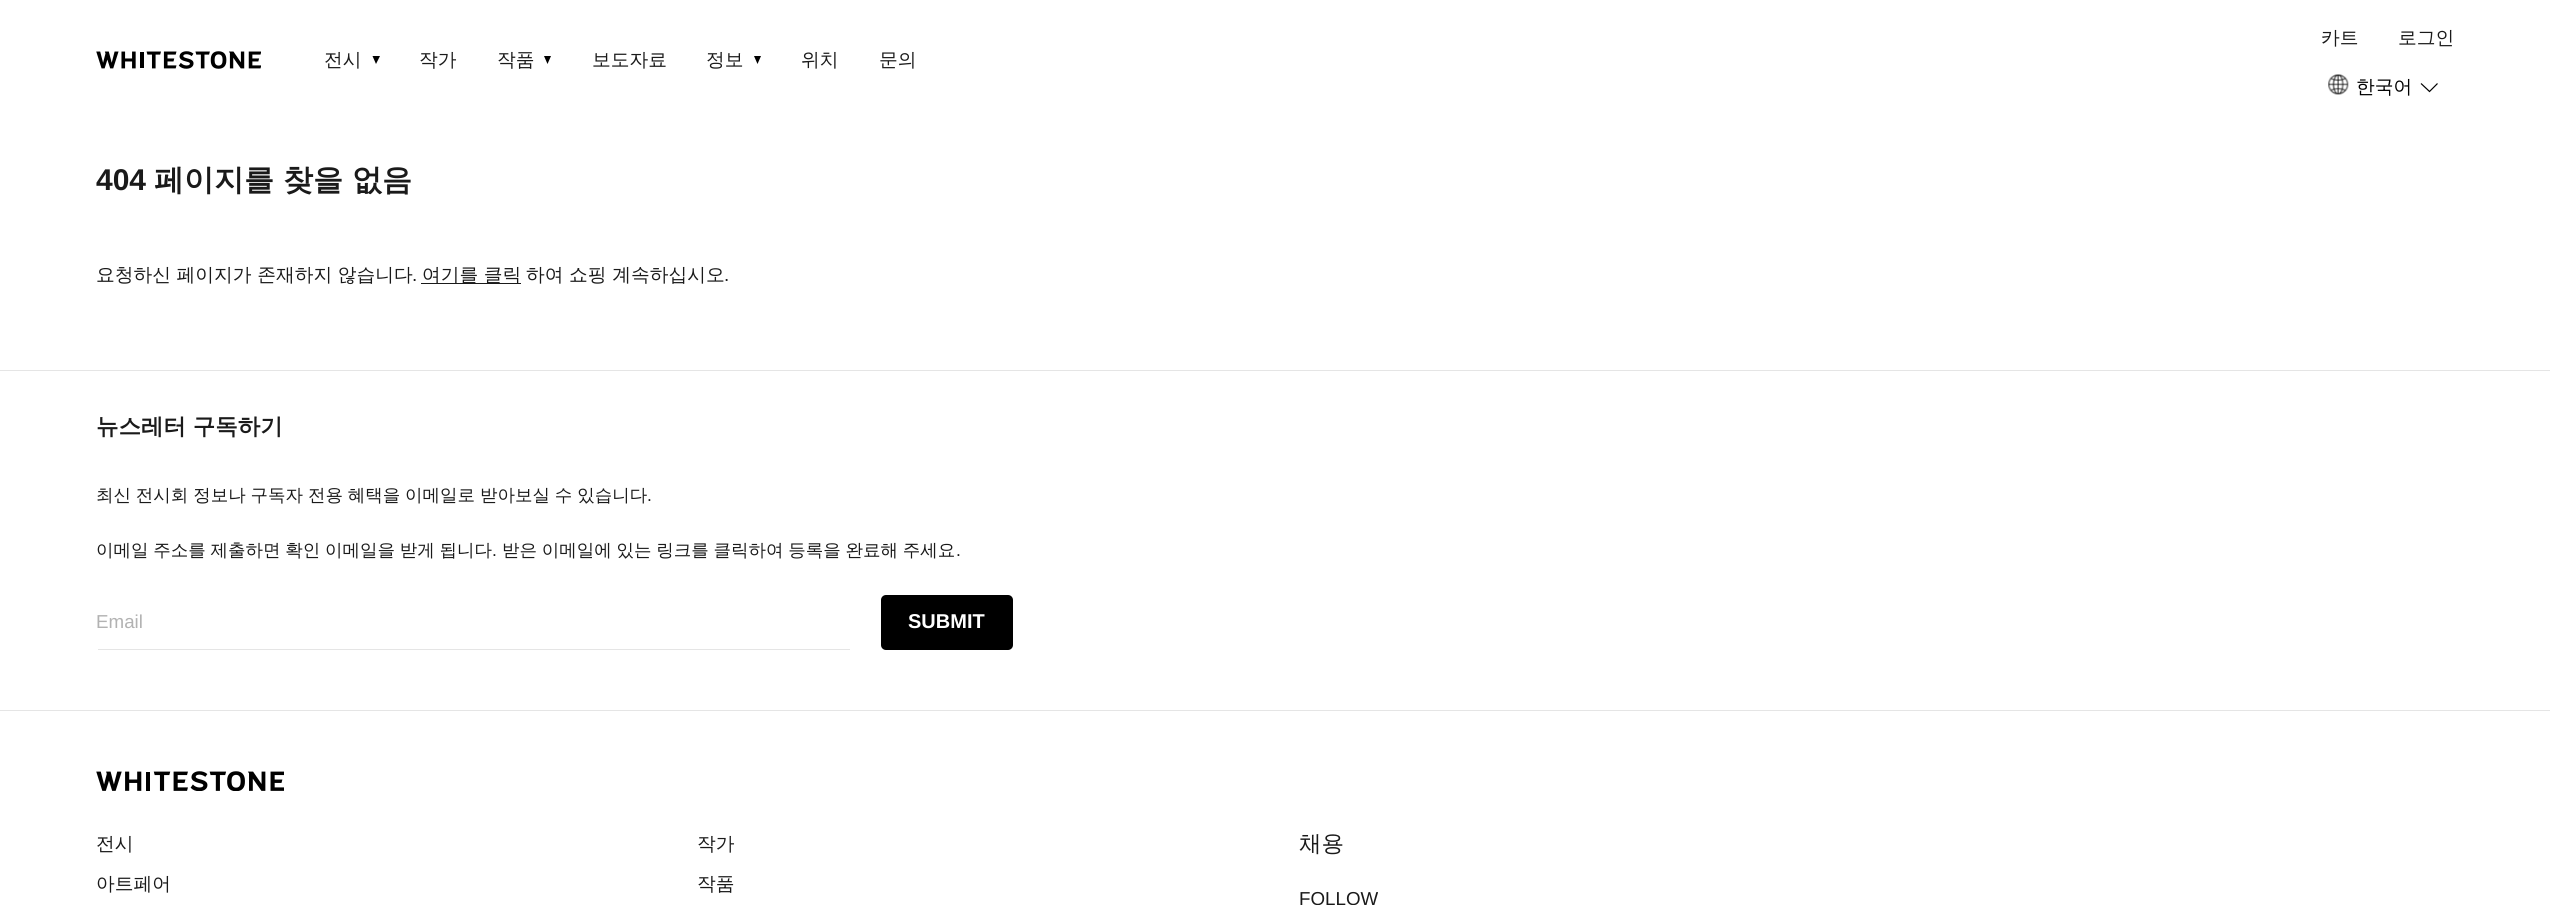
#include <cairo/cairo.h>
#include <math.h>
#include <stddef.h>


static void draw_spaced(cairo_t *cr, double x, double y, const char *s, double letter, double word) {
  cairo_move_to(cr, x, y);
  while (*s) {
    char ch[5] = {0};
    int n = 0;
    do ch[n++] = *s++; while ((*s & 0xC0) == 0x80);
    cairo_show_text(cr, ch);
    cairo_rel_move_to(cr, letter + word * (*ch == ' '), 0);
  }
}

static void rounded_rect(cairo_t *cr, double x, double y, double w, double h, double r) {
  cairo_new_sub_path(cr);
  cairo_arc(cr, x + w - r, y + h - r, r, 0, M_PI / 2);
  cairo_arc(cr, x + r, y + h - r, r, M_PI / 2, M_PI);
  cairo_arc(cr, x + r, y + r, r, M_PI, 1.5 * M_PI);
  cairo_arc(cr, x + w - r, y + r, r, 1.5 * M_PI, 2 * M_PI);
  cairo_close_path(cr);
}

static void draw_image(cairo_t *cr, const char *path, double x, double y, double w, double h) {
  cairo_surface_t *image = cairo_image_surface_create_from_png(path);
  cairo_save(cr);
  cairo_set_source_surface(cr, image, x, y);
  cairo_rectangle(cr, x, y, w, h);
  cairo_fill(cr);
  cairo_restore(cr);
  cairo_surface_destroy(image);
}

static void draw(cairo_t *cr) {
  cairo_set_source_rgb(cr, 1, 1, 1);
  cairo_paint(cr);
  draw_image(cr, "images/1.png", 96, 51, 165, 18);
  cairo_set_source_rgb(cr, 0, 0, 0);
  cairo_new_path(cr);
  cairo_move_to(cr, 376, 64);
  cairo_line_to(cr, 372.5, 56);
  cairo_line_to(cr, 380, 56);
  cairo_close_path(cr);
  cairo_fill(cr);
  cairo_new_path(cr);
  cairo_move_to(cr, 547.5, 64);
  cairo_line_to(cr, 544, 56);
  cairo_line_to(cr, 551, 56);
  cairo_close_path(cr);
  cairo_fill(cr);
  cairo_new_path(cr);
  cairo_move_to(cr, 757.5, 64);
  cairo_line_to(cr, 754, 56);
  cairo_line_to(cr, 761, 56);
  cairo_close_path(cr);
  cairo_fill(cr);
  draw_image(cr, "images/2.png", 2328, 74, 21, 21);
  cairo_new_path(cr);
  cairo_move_to(cr, 2421, 83.5);
  cairo_line_to(cr, 2429.5, 91.5);
  cairo_line_to(cr, 2437.5, 83.5);
  cairo_set_line_width(cr, 1.2);
  cairo_stroke(cr);
  cairo_set_source_rgb(cr, 26 / 255.0, 26 / 255.0, 26 / 255.0);
  cairo_rectangle(cr, 421, 283, 100, 1);
  cairo_fill(cr);
  cairo_set_source_rgb(cr, 229 / 255.0, 229 / 255.0, 229 / 255.0);
  cairo_rectangle(cr, 0, 370, 2550, 1);
  cairo_fill(cr);
  cairo_rectangle(cr, 98, 649, 752, 1);
  cairo_fill(cr);
  cairo_set_source_rgb(cr, 0, 0, 0);
  rounded_rect(cr, 881, 595, 132, 55, 5);
  cairo_fill(cr);
  cairo_set_source_rgb(cr, 229 / 255.0, 229 / 255.0, 229 / 255.0);
  cairo_rectangle(cr, 0, 710, 2550, 1);
  cairo_fill(cr);
  draw_image(cr, "images/3.png", 96, 771, 188, 20);
  cairo_select_font_face(cr, "WenQuanYi Zen Hei Medium", CAIRO_FONT_SLANT_NORMAL, CAIRO_FONT_WEIGHT_NORMAL);
  cairo_set_font_size(cr, 18.75);
  cairo_set_source_rgb(cr, 26 / 255.0, 26 / 255.0, 26 / 255.0);
  cairo_move_to(cr, 324, 66);
  cairo_show_text(cr, "전시");
  cairo_move_to(cr, 419, 66);
  cairo_show_text(cr, "작가");
  cairo_move_to(cr, 497, 66);
  cairo_show_text(cr, "작품");
  cairo_move_to(cr, 592, 66);
  cairo_show_text(cr, "보도자료");
  cairo_move_to(cr, 706, 66);
  cairo_show_text(cr, "정보");
  cairo_move_to(cr, 801, 66);
  cairo_show_text(cr, "위치");
  cairo_move_to(cr, 879, 66);
  cairo_show_text(cr, "문의");
  cairo_move_to(cr, 2321, 44);
  cairo_show_text(cr, "카트");
  cairo_move_to(cr, 2398, 44);
  cairo_show_text(cr, "로그인");
  cairo_set_source_rgb(cr, 0, 0, 0);
  cairo_move_to(cr, 2356, 93);
  cairo_show_text(cr, "한국어");
  cairo_select_font_face(cr, "Liberation Sans", CAIRO_FONT_SLANT_NORMAL, CAIRO_FONT_WEIGHT_BOLD);
  cairo_set_font_size(cr, 30);
  cairo_set_source_rgb(cr, 26 / 255.0, 26 / 255.0, 26 / 255.0);
  cairo_move_to(cr, 96, 190);
  cairo_show_text(cr, "404");
  cairo_select_font_face(cr, "WenQuanYi Zen Hei", CAIRO_FONT_SLANT_NORMAL, CAIRO_FONT_WEIGHT_BOLD);
  cairo_move_to(cr, 154, 190);
  cairo_show_text(cr, "페이지를 찾을 없음");
  cairo_select_font_face(cr, "WenQuanYi Zen Hei Medium", CAIRO_FONT_SLANT_NORMAL, CAIRO_FONT_WEIGHT_NORMAL);
  cairo_set_font_size(cr, 18.75);
  cairo_move_to(cr, 96, 281);
  cairo_show_text(cr, "요청하신 페이지가 존재하지 않습니다");
  cairo_select_font_face(cr, "Liberation Sans", CAIRO_FONT_SLANT_NORMAL, CAIRO_FONT_WEIGHT_NORMAL);
  cairo_move_to(cr, 412, 281);
  cairo_show_text(cr, ".");
  cairo_select_font_face(cr, "WenQuanYi Zen Hei Medium", CAIRO_FONT_SLANT_NORMAL, CAIRO_FONT_WEIGHT_NORMAL);
  cairo_move_to(cr, 422, 281);
  cairo_show_text(cr, "여기를 클릭");
  cairo_move_to(cr, 526, 281);
  cairo_show_text(cr, "하여 쇼핑 계속하십시오");
  cairo_select_font_face(cr, "Liberation Sans", CAIRO_FONT_SLANT_NORMAL, CAIRO_FONT_WEIGHT_NORMAL);
  cairo_move_to(cr, 724, 281);
  cairo_show_text(cr, ".");
  cairo_select_font_face(cr, "WenQuanYi Zen Hei", CAIRO_FONT_SLANT_NORMAL, CAIRO_FONT_WEIGHT_BOLD);
  cairo_set_font_size(cr, 22.5);
  cairo_move_to(cr, 96, 434);
  cairo_show_text(cr, "뉴스레터 구독하기");
  cairo_select_font_face(cr, "WenQuanYi Zen Hei Medium", CAIRO_FONT_SLANT_NORMAL, CAIRO_FONT_WEIGHT_NORMAL);
  cairo_set_font_size(cr, 17.5);
  draw_spaced(cr, 96, 501, "최신 전시회 정보나 구독자 전용 혜택을 이메일로 받아보실 수 있습니다", 0, -0.4);
  cairo_select_font_face(cr, "Liberation Sans", CAIRO_FONT_SLANT_NORMAL, CAIRO_FONT_WEIGHT_NORMAL);
  cairo_move_to(cr, 647, 501);
  cairo_show_text(cr, ".");
  cairo_select_font_face(cr, "WenQuanYi Zen Hei Medium", CAIRO_FONT_SLANT_NORMAL, CAIRO_FONT_WEIGHT_NORMAL);
  draw_spaced(cr, 96, 556, "이메일 주소를 제출하면 확인 이메일을 받게 됩니다", 0, -0.5);
  cairo_select_font_face(cr, "Liberation Sans", CAIRO_FONT_SLANT_NORMAL, CAIRO_FONT_WEIGHT_NORMAL);
  cairo_move_to(cr, 492, 556);
  cairo_show_text(cr, ".");
  cairo_select_font_face(cr, "WenQuanYi Zen Hei Medium", CAIRO_FONT_SLANT_NORMAL, CAIRO_FONT_WEIGHT_NORMAL);
  draw_spaced(cr, 502, 556, "받은 이메일에 있는 링크를 클릭하여 등록을 완료해 주세요", 0, -0.5);
  cairo_select_font_face(cr, "Liberation Sans", CAIRO_FONT_SLANT_NORMAL, CAIRO_FONT_WEIGHT_NORMAL);
  cairo_move_to(cr, 956, 556);
  cairo_show_text(cr, ".");
  cairo_set_font_size(cr, 18.75);
  cairo_set_source_rgb(cr, 178 / 255.0, 178 / 255.0, 178 / 255.0);
  cairo_move_to(cr, 96, 628);
  cairo_show_text(cr, "Email");
  cairo_select_font_face(cr, "Liberation Sans", CAIRO_FONT_SLANT_NORMAL, CAIRO_FONT_WEIGHT_BOLD);
  cairo_set_font_size(cr, 20);
  cairo_set_source_rgb(cr, 1, 1, 1);
  cairo_move_to(cr, 908, 628);
  cairo_show_text(cr, "SUBMIT");
  cairo_select_font_face(cr, "WenQuanYi Zen Hei Medium", CAIRO_FONT_SLANT_NORMAL, CAIRO_FONT_WEIGHT_NORMAL);
  cairo_set_font_size(cr, 18.75);
  cairo_set_source_rgb(cr, 26 / 255.0, 26 / 255.0, 26 / 255.0);
  cairo_move_to(cr, 96, 850);
  cairo_show_text(cr, "전시");
  cairo_move_to(cr, 96, 890);
  cairo_show_text(cr, "아트페어");
  cairo_move_to(cr, 697, 850);
  cairo_show_text(cr, "작가");
  cairo_move_to(cr, 697, 890);
  cairo_show_text(cr, "작품");
  cairo_set_font_size(cr, 22.5);
  cairo_move_to(cr, 1299, 851);
  cairo_show_text(cr, "채용");
  cairo_select_font_face(cr, "Liberation Sans", CAIRO_FONT_SLANT_NORMAL, CAIRO_FONT_WEIGHT_NORMAL);
  cairo_set_font_size(cr, 18.75);
  cairo_move_to(cr, 1299, 905);
  cairo_show_text(cr, "FOLLOW");
}

int main(void) {
  cairo_surface_t *surface = cairo_image_surface_create(CAIRO_FORMAT_RGB24, 2550, 905);
  cairo_t *cr = cairo_create(surface);
  cairo_font_options_t *options = cairo_font_options_create();
  cairo_font_options_set_hint_metrics(options, CAIRO_HINT_METRICS_OFF);
  cairo_font_options_set_hint_style(options, CAIRO_HINT_STYLE_NONE);
  cairo_set_font_options(cr, options);
  cairo_set_miter_limit(cr, 4);
  draw(cr);
  cairo_surface_write_to_png(surface, "out.png");
  cairo_font_options_destroy(options);
  cairo_destroy(cr);
  cairo_surface_destroy(surface);
  return 0;
}
